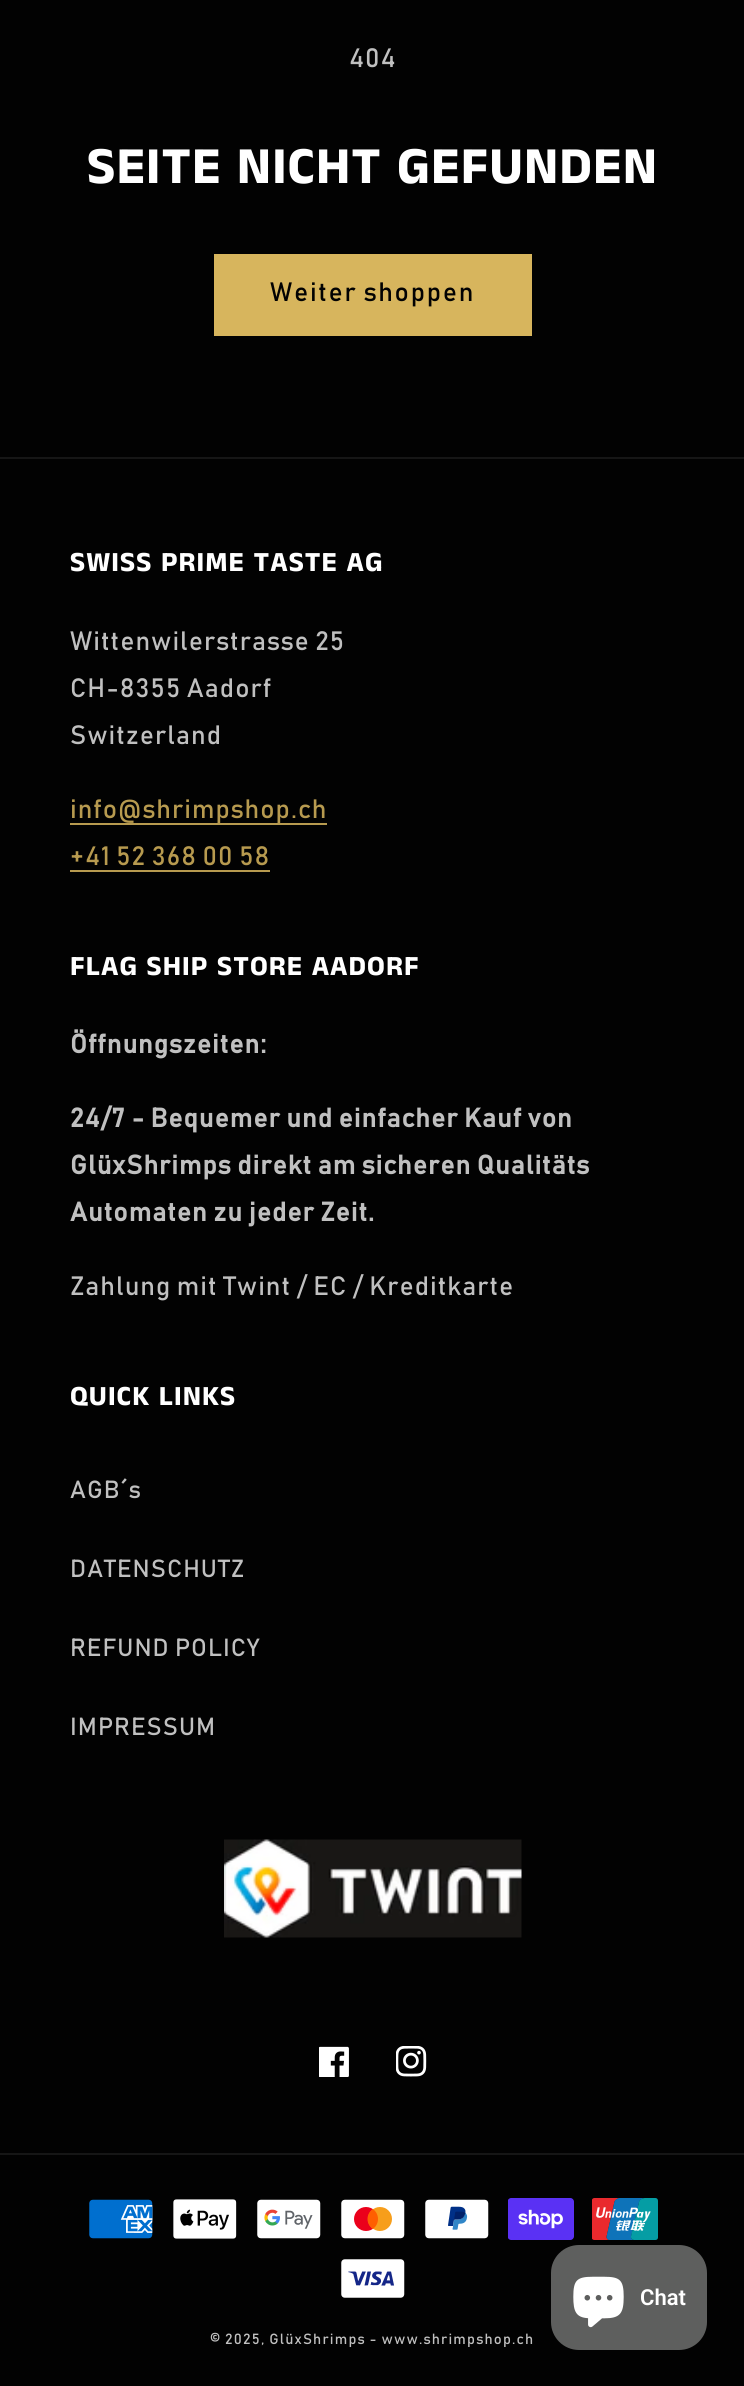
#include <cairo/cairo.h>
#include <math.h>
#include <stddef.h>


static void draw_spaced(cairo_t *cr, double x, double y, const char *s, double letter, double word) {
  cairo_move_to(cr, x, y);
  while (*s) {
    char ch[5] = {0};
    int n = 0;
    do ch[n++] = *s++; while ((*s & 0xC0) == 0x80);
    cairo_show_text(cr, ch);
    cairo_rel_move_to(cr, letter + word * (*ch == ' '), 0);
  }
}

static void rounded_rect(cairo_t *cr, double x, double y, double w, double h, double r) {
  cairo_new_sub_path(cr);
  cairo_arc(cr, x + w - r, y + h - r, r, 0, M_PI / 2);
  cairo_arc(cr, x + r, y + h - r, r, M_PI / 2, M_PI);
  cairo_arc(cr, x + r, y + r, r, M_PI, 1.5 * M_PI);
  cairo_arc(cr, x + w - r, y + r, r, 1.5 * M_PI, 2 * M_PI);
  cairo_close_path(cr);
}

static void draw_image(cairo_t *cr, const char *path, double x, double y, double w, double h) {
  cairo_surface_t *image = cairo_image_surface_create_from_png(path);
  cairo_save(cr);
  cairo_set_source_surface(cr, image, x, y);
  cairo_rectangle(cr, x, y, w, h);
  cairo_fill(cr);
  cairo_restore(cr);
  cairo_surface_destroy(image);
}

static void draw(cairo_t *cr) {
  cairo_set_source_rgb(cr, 2 / 255.0, 2 / 255.0, 2 / 255.0);
  cairo_paint(cr);
  cairo_rectangle(cr, 215, 255, 316, 80);
  cairo_set_source_rgb(cr, 215 / 255.0, 181 / 255.0, 93 / 255.0);
  cairo_stroke(cr);
  cairo_rectangle(cr, 216, 256, 314, 78);
  cairo_fill(cr);
  cairo_set_source_rgb(cr, 22 / 255.0, 22 / 255.0, 22 / 255.0);
  cairo_rectangle(cr, 0, 457, 744, 2);
  cairo_fill(cr);
  cairo_set_source_rgb(cr, 183 / 255.0, 154 / 255.0, 79 / 255.0);
  cairo_rectangle(cr, 70, 823, 257, 2);
  cairo_fill(cr);
  cairo_rectangle(cr, 70, 870, 200, 2);
  cairo_fill(cr);
  draw_image(cr, "images/1.png", 224, 1839, 298, 99);
  draw_image(cr, "images/2.png", 319, 2046, 30, 31);
  draw_image(cr, "images/3.png", 396, 2046, 31, 31);
  cairo_set_source_rgb(cr, 22 / 255.0, 22 / 255.0, 22 / 255.0);
  cairo_rectangle(cr, 0, 2153, 744, 2);
  cairo_fill(cr);
  draw_image(cr, "images/4.png", 89, 2199, 64, 40);
  draw_image(cr, "images/5.png", 173, 2199, 64, 40);
  draw_image(cr, "images/6.png", 257, 2199, 64, 40);
  draw_image(cr, "images/7.png", 341, 2199, 64, 40);
  draw_image(cr, "images/8.png", 425, 2199, 64, 40);
  draw_image(cr, "images/9.png", 508, 2198, 66, 42);
  draw_image(cr, "images/10.png", 592, 2198, 66, 42);
  draw_image(cr, "images/11.png", 341, 2259, 64, 39);
  cairo_set_source_rgb(cr, 94 / 255.0, 95 / 255.0, 94 / 255.0);
  rounded_rect(cr, 551, 2245, 156, 105, 28);
  cairo_fill(cr);
  draw_image(cr, "images/12.png", 573, 2276, 51, 52);
  cairo_select_font_face(cr, "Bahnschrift", CAIRO_FONT_SLANT_NORMAL, CAIRO_FONT_WEIGHT_NORMAL);
  cairo_set_font_size(cr, 26.25);
  cairo_set_source_rgb(cr, 192 / 255.0, 192 / 255.0, 192 / 255.0);
  draw_spaced(cr, 349, 67, "404", 1.05, 0);
  cairo_select_font_face(cr, "Anek Tamil", CAIRO_FONT_SLANT_NORMAL, CAIRO_FONT_WEIGHT_BOLD);
  cairo_set_font_size(cr, 52.5);
  cairo_set_source_rgb(cr, 1, 1, 1);
  draw_spaced(cr, 87, 183, "SEITE NICHT GEFUNDEN", 1.05, 0);
  cairo_select_font_face(cr, "Bahnschrift", CAIRO_FONT_SLANT_NORMAL, CAIRO_FONT_WEIGHT_NORMAL);
  cairo_set_font_size(cr, 26.25);
  cairo_set_source_rgb(cr, 2 / 255.0, 2 / 255.0, 2 / 255.0);
  draw_spaced(cr, 270, 301, "Weiter shoppen", 1.75, 0);
  cairo_select_font_face(cr, "Anek Tamil", CAIRO_FONT_SLANT_NORMAL, CAIRO_FONT_WEIGHT_BOLD);
  cairo_set_font_size(cr, 28);
  cairo_set_source_rgb(cr, 1, 1, 1);
  draw_spaced(cr, 70, 571, "SWISS PRIME TASTE AG", 1.05, 0);
  cairo_select_font_face(cr, "Bahnschrift", CAIRO_FONT_SLANT_NORMAL, CAIRO_FONT_WEIGHT_NORMAL);
  cairo_set_font_size(cr, 26.25);
  cairo_set_source_rgb(cr, 192 / 255.0, 192 / 255.0, 192 / 255.0);
  draw_spaced(cr, 70, 650, "Wittenwilerstrasse 25", 1.05, 0);
  draw_spaced(cr, 70, 697, "CH-8355 Aadorf", 1.05, 0);
  draw_spaced(cr, 70, 744, "Switzerland", 1.05, 0);
  cairo_set_source_rgb(cr, 183 / 255.0, 154 / 255.0, 79 / 255.0);
  draw_spaced(cr, 70, 818, "info@shrimpshop.ch", 1.05, 0);
  draw_spaced(cr, 70, 865, "+41 52 368 00 58", 1.05, 0);
  cairo_select_font_face(cr, "Anek Tamil", CAIRO_FONT_SLANT_NORMAL, CAIRO_FONT_WEIGHT_BOLD);
  cairo_set_font_size(cr, 28);
  cairo_set_source_rgb(cr, 1, 1, 1);
  draw_spaced(cr, 70, 975, "FLAG SHIP STORE AADORF", 1.05, 0);
  cairo_select_font_face(cr, "Bahnschrift", CAIRO_FONT_SLANT_NORMAL, CAIRO_FONT_WEIGHT_BOLD);
  cairo_set_font_size(cr, 26.25);
  cairo_set_source_rgb(cr, 192 / 255.0, 192 / 255.0, 192 / 255.0);
  draw_spaced(cr, 70, 1053, "Öffnungszeiten:", 1.05, 0);
  draw_spaced(cr, 70, 1127, "24/7 - Bequemer und einfacher Kauf von", 1.05, 0);
  draw_spaced(cr, 70, 1174, "GlüxShrimps direkt am sicheren Qualitäts", 1.05, 0);
  draw_spaced(cr, 70, 1221, "Automaten zu jeder Zeit.", 1.05, 0);
  cairo_select_font_face(cr, "Bahnschrift", CAIRO_FONT_SLANT_NORMAL, CAIRO_FONT_WEIGHT_NORMAL);
  draw_spaced(cr, 70, 1295, "Zahlung mit Twint / EC / Kreditkarte", 1.05, 0);
  cairo_select_font_face(cr, "Anek Tamil", CAIRO_FONT_SLANT_NORMAL, CAIRO_FONT_WEIGHT_BOLD);
  cairo_set_font_size(cr, 28);
  cairo_set_source_rgb(cr, 1, 1, 1);
  draw_spaced(cr, 70, 1405, "QUICK LINKS", 1.05, 0);
  cairo_select_font_face(cr, "Bahnschrift", CAIRO_FONT_SLANT_NORMAL, CAIRO_FONT_WEIGHT_NORMAL);
  cairo_set_font_size(cr, 24.5);
  cairo_set_source_rgb(cr, 192 / 255.0, 192 / 255.0, 192 / 255.0);
  draw_spaced(cr, 70, 1498, "AGB´s", 1.05, 0);
  draw_spaced(cr, 70, 1577, "DATENSCHUTZ", 1.05, 0);
  draw_spaced(cr, 70, 1656, "REFUND POLICY", 1.05, 0);
  draw_spaced(cr, 70, 1735, "IMPRESSUM", 1.05, 0);
  cairo_set_font_size(cr, 14.6);
  draw_spaced(cr, 210, 2344, "© 2025, GlüxShrimps - www.shrimpshop.ch", 1.2, 0);
  cairo_select_font_face(cr, "Roboto SemiBold", CAIRO_FONT_SLANT_NORMAL, CAIRO_FONT_WEIGHT_NORMAL);
  cairo_set_font_size(cr, 22);
  cairo_set_source_rgb(cr, 1, 1, 1);
  cairo_move_to(cr, 640, 2305);
  cairo_show_text(cr, "Chat");
}

int main(void) {
  cairo_surface_t *surface = cairo_image_surface_create(CAIRO_FORMAT_RGB24, 744, 2386);
  cairo_t *cr = cairo_create(surface);
  cairo_font_options_t *options = cairo_font_options_create();
  cairo_font_options_set_hint_metrics(options, CAIRO_HINT_METRICS_OFF);
  cairo_font_options_set_hint_style(options, CAIRO_HINT_STYLE_NONE);
  cairo_set_font_options(cr, options);
  cairo_set_miter_limit(cr, 4);
  draw(cr);
  cairo_surface_write_to_png(surface, "out.png");
  cairo_font_options_destroy(options);
  cairo_destroy(cr);
  cairo_surface_destroy(surface);
  return 0;
}
